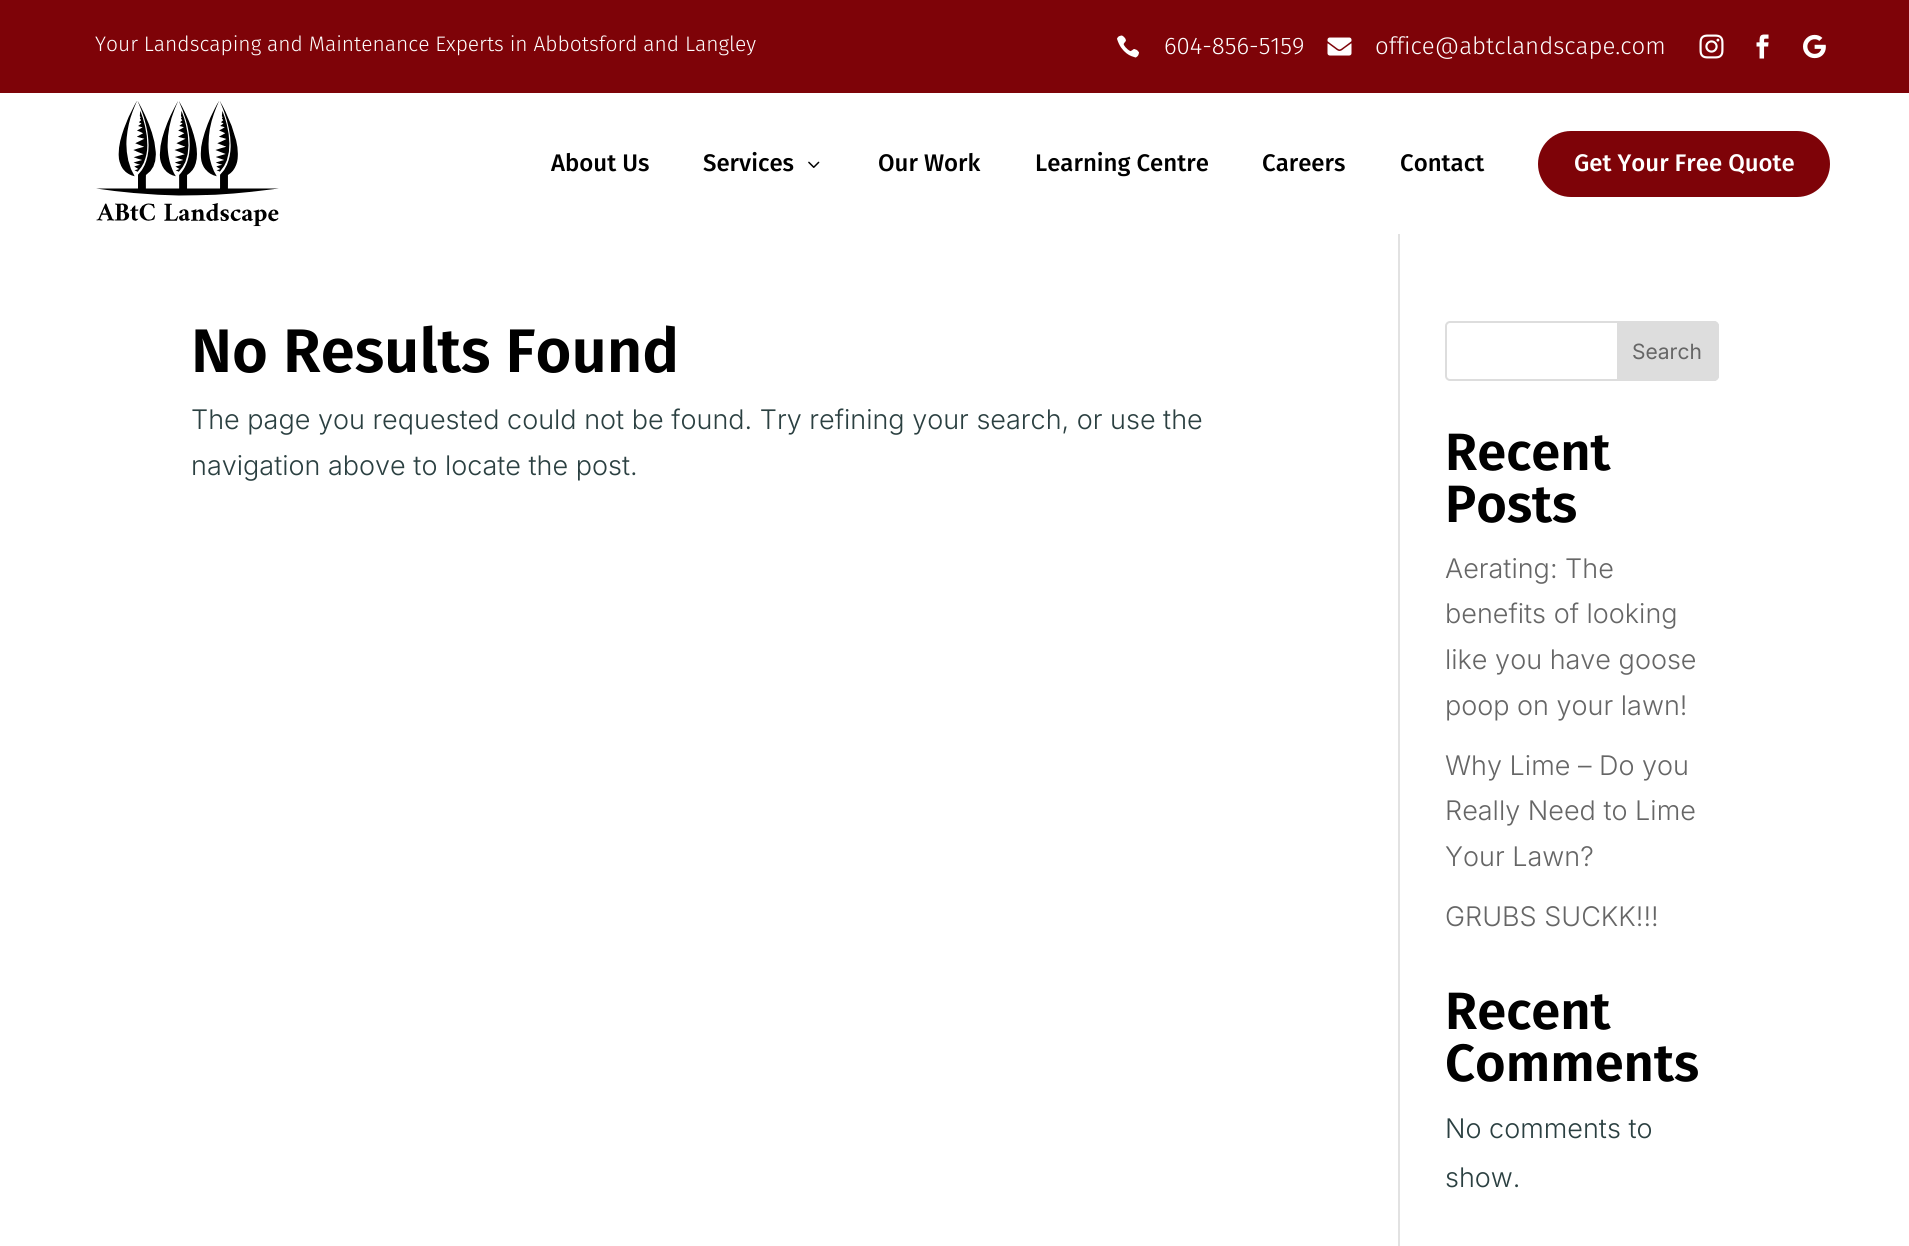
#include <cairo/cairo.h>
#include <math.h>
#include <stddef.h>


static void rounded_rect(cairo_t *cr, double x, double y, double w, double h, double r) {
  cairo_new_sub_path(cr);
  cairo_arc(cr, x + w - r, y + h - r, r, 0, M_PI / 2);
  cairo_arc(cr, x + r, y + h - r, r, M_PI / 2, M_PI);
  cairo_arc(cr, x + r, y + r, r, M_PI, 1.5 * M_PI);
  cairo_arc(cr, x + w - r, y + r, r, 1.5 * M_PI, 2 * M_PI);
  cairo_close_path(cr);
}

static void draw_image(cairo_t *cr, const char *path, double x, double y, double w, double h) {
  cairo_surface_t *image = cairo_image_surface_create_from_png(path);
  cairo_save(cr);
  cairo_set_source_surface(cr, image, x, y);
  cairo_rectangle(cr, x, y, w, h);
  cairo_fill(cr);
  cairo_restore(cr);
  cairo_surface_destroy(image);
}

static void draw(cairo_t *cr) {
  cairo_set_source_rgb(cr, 1, 1, 1);
  cairo_paint(cr);
  cairo_set_source_rgb(cr, 126 / 255.0, 3 / 255.0, 8 / 255.0);
  cairo_rectangle(cr, 0, 0, 1909, 93);
  cairo_fill(cr);
  draw_image(cr, "images/1.png", 1117, 35, 22, 23);
  draw_image(cr, "images/2.png", 1327, 37, 25, 19);
  draw_image(cr, "images/3.png", 1699, 34, 25, 25);
  draw_image(cr, "images/4.png", 1756, 34, 13, 25);
  draw_image(cr, "images/5.png", 1803, 34, 23, 25);
  draw_image(cr, "images/6.png", 96, 101, 183, 126);
  draw_image(cr, "images/7.png", 808, 161, 12, 7);
  rounded_rect(cr, 1538, 131, 292, 66, 33);
  cairo_fill(cr);
  cairo_set_source_rgb(cr, 226 / 255.0, 226 / 255.0, 226 / 255.0);
  cairo_rectangle(cr, 1398, 234, 2, 1012);
  cairo_fill(cr);
  rounded_rect(cr, 1446, 322, 272, 58, 4);
  cairo_set_source_rgb(cr, 221 / 255.0, 221 / 255.0, 221 / 255.0);
  cairo_stroke(cr);
  cairo_new_path(cr);
  cairo_move_to(cr, 1618, 322);
  cairo_line_to(cr, 1714, 322);
  cairo_curve_to(cr, 1716, 322, 1718, 324, 1718, 326);
  cairo_line_to(cr, 1718, 376);
  cairo_curve_to(cr, 1718, 378, 1716, 380, 1714, 380);
  cairo_line_to(cr, 1618, 380);
  cairo_close_path(cr);
  cairo_fill_preserve(cr);
  cairo_stroke(cr);
  cairo_select_font_face(cr, "Fira Sans Light", CAIRO_FONT_SLANT_NORMAL, CAIRO_FONT_WEIGHT_NORMAL);
  cairo_set_font_size(cr, 21);
  cairo_set_source_rgb(cr, 1, 1, 1);
  cairo_move_to(cr, 95, 51);
  cairo_show_text(cr, "Your Landscaping and Maintenance Experts in Abbotsford and Langley");
  cairo_set_font_size(cr, 24);
  cairo_move_to(cr, 1164, 54);
  cairo_show_text(cr, "604-856-5159");
  cairo_move_to(cr, 1375, 54);
  cairo_show_text(cr, "office@abtclandscape.com");
  cairo_select_font_face(cr, "Fira Sans Medium", CAIRO_FONT_SLANT_NORMAL, CAIRO_FONT_WEIGHT_NORMAL);
  cairo_set_source_rgb(cr, 0, 0, 0);
  cairo_move_to(cr, 551, 171);
  cairo_show_text(cr, "About Us");
  cairo_move_to(cr, 703, 171);
  cairo_show_text(cr, "Services");
  cairo_move_to(cr, 878, 171);
  cairo_show_text(cr, "Our Work");
  cairo_move_to(cr, 1035, 171);
  cairo_show_text(cr, "Learning Centre");
  cairo_move_to(cr, 1262, 171);
  cairo_show_text(cr, "Careers");
  cairo_move_to(cr, 1400, 171);
  cairo_show_text(cr, "Contact");
  cairo_set_source_rgb(cr, 1, 1, 1);
  cairo_move_to(cr, 1574, 171);
  cairo_show_text(cr, "Get Your Free Quote");
  cairo_select_font_face(cr, "Fira Sans SemiBold", CAIRO_FONT_SLANT_NORMAL, CAIRO_FONT_WEIGHT_NORMAL);
  cairo_set_font_size(cr, 61.5);
  cairo_set_source_rgb(cr, 0, 0, 0);
  cairo_move_to(cr, 191, 372);
  cairo_show_text(cr, "No Results Found");
  cairo_select_font_face(cr, "Inter Light", CAIRO_FONT_SLANT_NORMAL, CAIRO_FONT_WEIGHT_NORMAL);
  cairo_set_font_size(cr, 27);
  cairo_set_source_rgb(cr, 43 / 255.0, 64 / 255.0, 65 / 255.0);
  cairo_move_to(cr, 191, 429);
  cairo_show_text(cr, "The page you requested could not be found. Try refining your search, or use the");
  cairo_move_to(cr, 191, 475);
  cairo_show_text(cr, "navigation above to locate the post.");
  cairo_select_font_face(cr, "Inter", CAIRO_FONT_SLANT_NORMAL, CAIRO_FONT_WEIGHT_NORMAL);
  cairo_set_font_size(cr, 21);
  cairo_set_source_rgb(cr, 102 / 255.0, 102 / 255.0, 102 / 255.0);
  cairo_move_to(cr, 1632, 359);
  cairo_show_text(cr, "Search");
  cairo_select_font_face(cr, "Fira Sans SemiBold", CAIRO_FONT_SLANT_NORMAL, CAIRO_FONT_WEIGHT_NORMAL);
  cairo_set_font_size(cr, 52.5);
  cairo_set_source_rgb(cr, 0, 0, 0);
  cairo_move_to(cr, 1445, 470);
  cairo_show_text(cr, "Recent");
  cairo_move_to(cr, 1445, 522);
  cairo_show_text(cr, "Posts");
  cairo_select_font_face(cr, "Inter Light", CAIRO_FONT_SLANT_NORMAL, CAIRO_FONT_WEIGHT_NORMAL);
  cairo_set_font_size(cr, 27);
  cairo_set_source_rgb(cr, 102 / 255.0, 102 / 255.0, 102 / 255.0);
  cairo_move_to(cr, 1445, 578);
  cairo_show_text(cr, "Aerating: The");
  cairo_move_to(cr, 1445, 623);
  cairo_show_text(cr, "benefits of looking");
  cairo_move_to(cr, 1445, 669);
  cairo_show_text(cr, "like you have goose");
  cairo_move_to(cr, 1445, 715);
  cairo_show_text(cr, "poop on your lawn!");
  cairo_move_to(cr, 1445, 775);
  cairo_show_text(cr, "Why Lime – Do you");
  cairo_move_to(cr, 1445, 820);
  cairo_show_text(cr, "Really Need to Lime");
  cairo_move_to(cr, 1445, 866);
  cairo_show_text(cr, "Your Lawn?");
  cairo_move_to(cr, 1445, 926);
  cairo_show_text(cr, "GRUBS SUCKK!!!");
  cairo_select_font_face(cr, "Fira Sans SemiBold", CAIRO_FONT_SLANT_NORMAL, CAIRO_FONT_WEIGHT_NORMAL);
  cairo_set_font_size(cr, 52.5);
  cairo_set_source_rgb(cr, 0, 0, 0);
  cairo_move_to(cr, 1445, 1029);
  cairo_show_text(cr, "Recent");
  cairo_move_to(cr, 1445, 1081);
  cairo_show_text(cr, "Comments");
  cairo_select_font_face(cr, "Inter Light", CAIRO_FONT_SLANT_NORMAL, CAIRO_FONT_WEIGHT_NORMAL);
  cairo_set_font_size(cr, 27);
  cairo_set_source_rgb(cr, 43 / 255.0, 64 / 255.0, 65 / 255.0);
  cairo_move_to(cr, 1445, 1138);
  cairo_show_text(cr, "No comments to");
  cairo_move_to(cr, 1445, 1187);
  cairo_show_text(cr, "show.");
}

int main(void) {
  cairo_surface_t *surface = cairo_image_surface_create(CAIRO_FORMAT_RGB24, 1909, 1246);
  cairo_t *cr = cairo_create(surface);
  cairo_font_options_t *options = cairo_font_options_create();
  cairo_font_options_set_hint_metrics(options, CAIRO_HINT_METRICS_OFF);
  cairo_font_options_set_hint_style(options, CAIRO_HINT_STYLE_NONE);
  cairo_set_font_options(cr, options);
  cairo_set_miter_limit(cr, 4);
  draw(cr);
  cairo_surface_write_to_png(surface, "out.png");
  cairo_font_options_destroy(options);
  cairo_destroy(cr);
  cairo_surface_destroy(surface);
  return 0;
}
